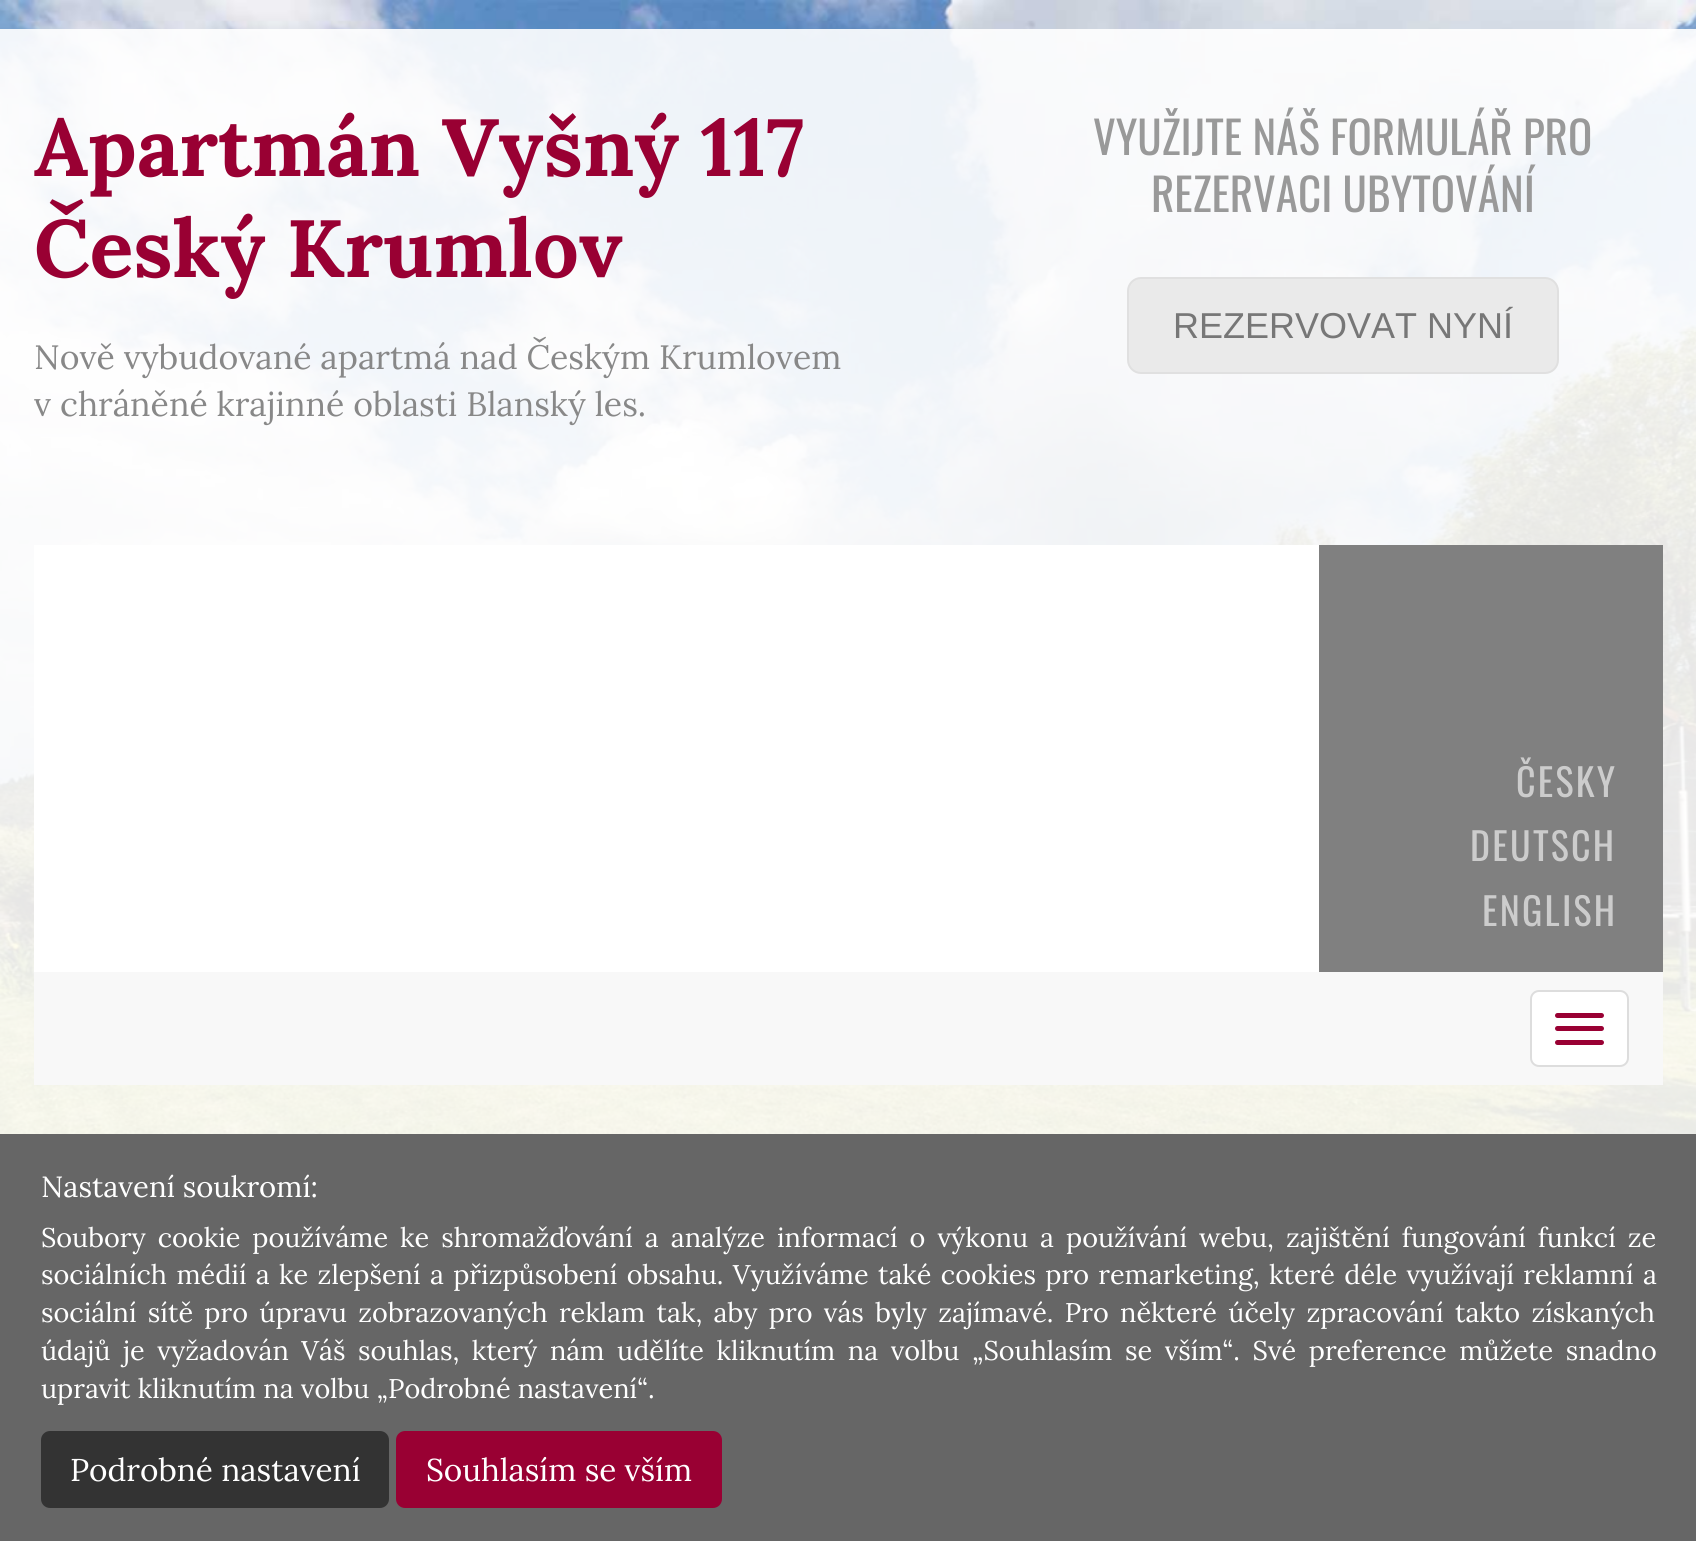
#include <cairo/cairo.h>
#include <math.h>
#include <stddef.h>


static void draw_spaced(cairo_t *cr, double x, double y, const char *s, double letter, double word) {
  cairo_move_to(cr, x, y);
  while (*s) {
    char ch[5] = {0};
    int n = 0;
    do ch[n++] = *s++; while ((*s & 0xC0) == 0x80);
    cairo_show_text(cr, ch);
    cairo_rel_move_to(cr, letter + word * (*ch == ' '), 0);
  }
}

static void rounded_rect(cairo_t *cr, double x, double y, double w, double h, double r) {
  cairo_new_sub_path(cr);
  cairo_arc(cr, x + w - r, y + h - r, r, 0, M_PI / 2);
  cairo_arc(cr, x + r, y + h - r, r, M_PI / 2, M_PI);
  cairo_arc(cr, x + r, y + r, r, M_PI, 1.5 * M_PI);
  cairo_arc(cr, x + w - r, y + r, r, 1.5 * M_PI, 2 * M_PI);
  cairo_close_path(cr);
}

static void draw_image(cairo_t *cr, const char *path, double x, double y, double w, double h) {
  cairo_surface_t *image = cairo_image_surface_create_from_png(path);
  cairo_save(cr);
  cairo_set_source_surface(cr, image, x, y);
  cairo_rectangle(cr, x, y, w, h);
  cairo_fill(cr);
  cairo_restore(cr);
  cairo_surface_destroy(image);
}

static void draw(cairo_t *cr) {
  cairo_set_source_rgb(cr, 1, 1, 1);
  cairo_paint(cr);
  draw_image(cr, "images/1.png", 0, 0, 1696, 1134);
  cairo_set_source_rgb(cr, 234 / 255.0, 234 / 255.0, 234 / 255.0);
  rounded_rect(cr, 1128, 278, 430, 95, 13);
  cairo_fill_preserve(cr);
  cairo_set_source_rgb(cr, 224 / 255.0, 224 / 255.0, 224 / 255.0);
  cairo_stroke(cr);
  cairo_set_source_rgb(cr, 1, 1, 1);
  cairo_rectangle(cr, 34, 545, 1285, 427);
  cairo_fill(cr);
  cairo_set_source_rgb(cr, 128 / 255.0, 128 / 255.0, 128 / 255.0);
  cairo_rectangle(cr, 1319, 545, 344, 427);
  cairo_fill(cr);
  cairo_set_source_rgb(cr, 248 / 255.0, 248 / 255.0, 248 / 255.0);
  cairo_rectangle(cr, 34, 972, 1629, 113);
  cairo_fill(cr);
  cairo_set_source_rgb(cr, 1, 1, 1);
  rounded_rect(cr, 1531, 991, 97, 75, 8);
  cairo_fill_preserve(cr);
  cairo_set_source_rgb(cr, 221 / 255.0, 221 / 255.0, 221 / 255.0);
  cairo_stroke(cr);
  cairo_set_source_rgb(cr, 153 / 255.0, 0, 51 / 255.0);
  rounded_rect(cr, 1555, 1013, 49, 5, 2.5);
  cairo_fill(cr);
  rounded_rect(cr, 1555, 1026, 49, 5, 2.5);
  cairo_fill(cr);
  rounded_rect(cr, 1555, 1040, 49, 5, 2.5);
  cairo_fill(cr);
  cairo_set_source_rgb(cr, 102 / 255.0, 102 / 255.0, 102 / 255.0);
  cairo_rectangle(cr, 0, 1134, 1696, 407);
  cairo_fill(cr);
  cairo_set_source_rgb(cr, 51 / 255.0, 51 / 255.0, 51 / 255.0);
  rounded_rect(cr, 42, 1432, 346, 75, 8);
  cairo_fill_preserve(cr);
  cairo_stroke(cr);
  cairo_set_source_rgb(cr, 153 / 255.0, 0, 51 / 255.0);
  rounded_rect(cr, 397, 1432, 324, 75, 8);
  cairo_fill_preserve(cr);
  cairo_stroke(cr);
  cairo_select_font_face(cr, "Lora", CAIRO_FONT_SLANT_NORMAL, CAIRO_FONT_WEIGHT_BOLD);
  cairo_set_font_size(cr, 81);
  cairo_move_to(cr, 34, 176);
  cairo_show_text(cr, "Apartmán Vyšný 117");
  cairo_move_to(cr, 34, 277);
  cairo_show_text(cr, "Český Krumlov");
  cairo_select_font_face(cr, "Lora", CAIRO_FONT_SLANT_NORMAL, CAIRO_FONT_WEIGHT_NORMAL);
  cairo_set_font_size(cr, 33.75);
  cairo_set_source_rgb(cr, 136 / 255.0, 136 / 255.0, 136 / 255.0);
  cairo_move_to(cr, 34, 369);
  cairo_show_text(cr, "Nově vybudované apartmá nad Českým Krumlovem");
  cairo_move_to(cr, 34, 416);
  cairo_show_text(cr, "v chráněné krajinné oblasti Blanský les.");
  cairo_select_font_face(cr, "Oswald", CAIRO_FONT_SLANT_NORMAL, CAIRO_FONT_WEIGHT_NORMAL);
  cairo_set_font_size(cr, 45);
  cairo_set_source_rgb(cr, 153 / 255.0, 153 / 255.0, 153 / 255.0);
  cairo_move_to(cr, 1093, 155);
  cairo_show_text(cr, "VYUŽIJTE NÁŠ FORMULÁŘ PRO");
  cairo_move_to(cr, 1151, 212);
  cairo_show_text(cr, "REZERVACI UBYTOVÁNÍ");
  cairo_select_font_face(cr, "Liberation Sans", CAIRO_FONT_SLANT_NORMAL, CAIRO_FONT_WEIGHT_NORMAL);
  cairo_set_font_size(cr, 36);
  cairo_set_source_rgb(cr, 119 / 255.0, 119 / 255.0, 119 / 255.0);
  cairo_move_to(cr, 1173, 338);
  cairo_show_text(cr, "REZERVOVAT NYNÍ");
  cairo_select_font_face(cr, "Oswald", CAIRO_FONT_SLANT_NORMAL, CAIRO_FONT_WEIGHT_NORMAL);
  cairo_set_font_size(cr, 38);
  cairo_set_source_rgb(cr, 204 / 255.0, 204 / 255.0, 204 / 255.0);
  draw_spaced(cr, 1516, 797, "ČESKY", 2.25, 0);
  draw_spaced(cr, 1470, 861, "DEUTSCH", 2.25, 0);
  draw_spaced(cr, 1482, 926, "ENGLISH", 2.25, 0);
  cairo_select_font_face(cr, "Lora", CAIRO_FONT_SLANT_NORMAL, CAIRO_FONT_WEIGHT_NORMAL);
  cairo_set_font_size(cr, 29.25);
  cairo_set_source_rgb(cr, 1, 1, 1);
  cairo_move_to(cr, 41, 1197);
  cairo_show_text(cr, "Nastavení soukromí:");
  cairo_set_font_size(cr, 27);
  draw_spaced(cr, 41, 1247, "Soubory cookie používáme ke shromažďování a analýze informací o výkonu a používání webu, zajištění fungování funkcí ze", 0, 4.9);
  draw_spaced(cr, 41, 1284, "sociálních médií a ke zlepšení a přizpůsobení obsahu. Využíváme také cookies pro remarketing, které déle využívají reklamní a", 0, 2.25);
  draw_spaced(cr, 41, 1322, "sociální sítě pro úpravu zobrazovaných reklam tak, aby pro vás byly zajímavé. Pro některé účely zpracování takto získaných", 0, 4.25);
  draw_spaced(cr, 41, 1360, "údajů je vyžadován Váš souhlas, který nám udělíte kliknutím na volbu „Souhlasím se vším“. Své preference můžete snadno", 0, 5.5);
  cairo_move_to(cr, 41, 1398);
  cairo_show_text(cr, "upravit kliknutím na volbu „Podrobné nastavení“.");
  cairo_set_font_size(cr, 31.5);
  cairo_move_to(cr, 70, 1481);
  cairo_show_text(cr, "Podrobné nastavení");
  cairo_move_to(cr, 426, 1481);
  cairo_show_text(cr, "Souhlasím se vším");
}

int main(void) {
  cairo_surface_t *surface = cairo_image_surface_create(CAIRO_FORMAT_RGB24, 1696, 1541);
  cairo_t *cr = cairo_create(surface);
  cairo_font_options_t *options = cairo_font_options_create();
  cairo_font_options_set_hint_metrics(options, CAIRO_HINT_METRICS_OFF);
  cairo_font_options_set_hint_style(options, CAIRO_HINT_STYLE_NONE);
  cairo_set_font_options(cr, options);
  cairo_set_miter_limit(cr, 4);
  draw(cr);
  cairo_surface_write_to_png(surface, "out.png");
  cairo_font_options_destroy(options);
  cairo_destroy(cr);
  cairo_surface_destroy(surface);
  return 0;
}
